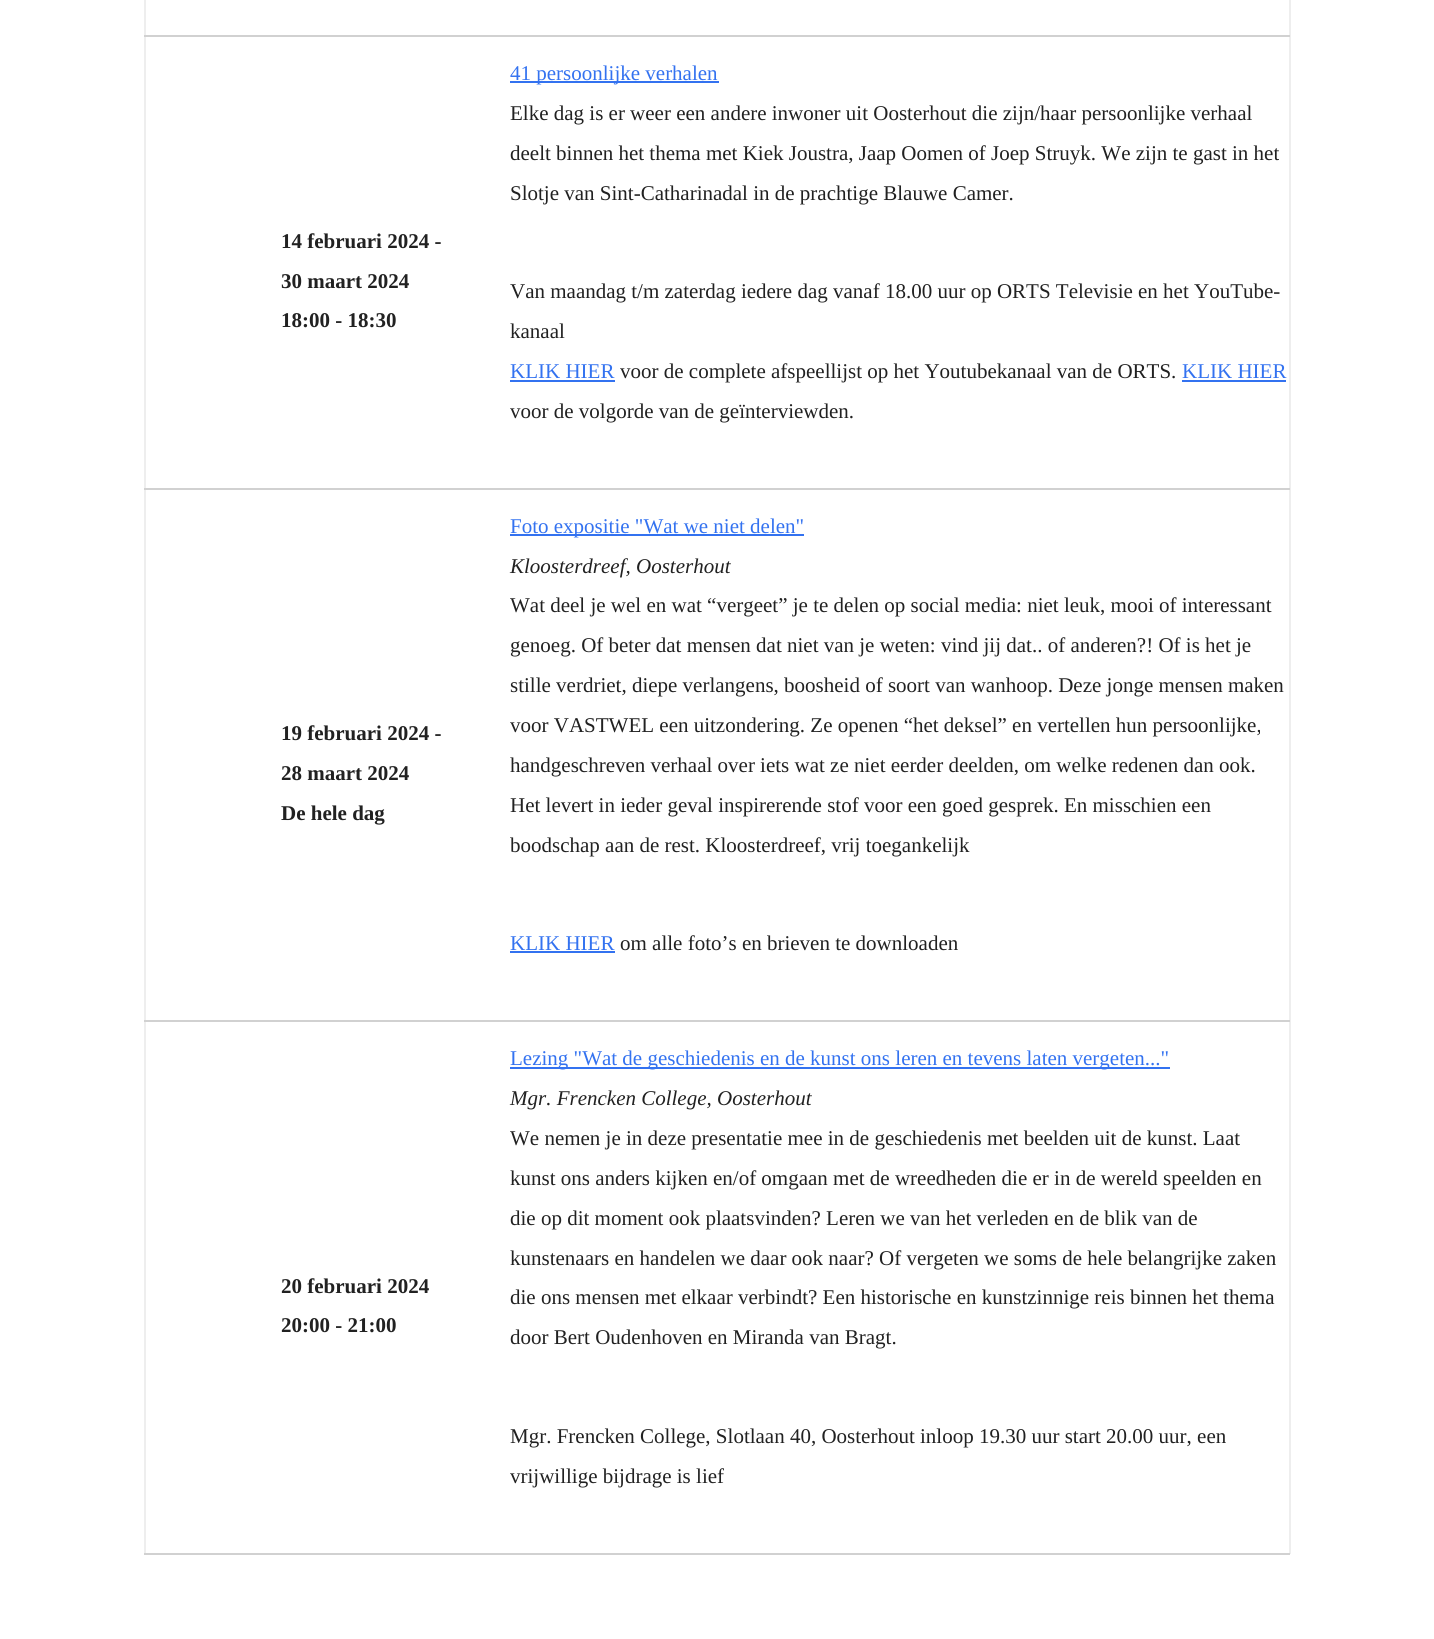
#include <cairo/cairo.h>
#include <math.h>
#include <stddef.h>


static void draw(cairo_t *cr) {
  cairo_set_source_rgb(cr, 1, 1, 1);
  cairo_paint(cr);
  cairo_set_source_rgb(cr, 238 / 255.0, 238 / 255.0, 238 / 255.0);
  cairo_rectangle(cr, 1289, 0, 2, 1554);
  cairo_fill(cr);
  cairo_rectangle(cr, 144, 0, 2, 1554);
  cairo_fill(cr);
  cairo_set_source_rgb(cr, 209 / 255.0, 209 / 255.0, 209 / 255.0);
  cairo_rectangle(cr, 144, 35, 1146, 2);
  cairo_fill(cr);
  cairo_rectangle(cr, 144, 488, 1146, 2);
  cairo_fill(cr);
  cairo_set_source_rgb(cr, 51 / 255.0, 114 / 255.0, 240 / 255.0);
  cairo_rectangle(cr, 510, 81, 209, 2);
  cairo_fill(cr);
  cairo_rectangle(cr, 510, 380, 105, 2);
  cairo_fill(cr);
  cairo_rectangle(cr, 1182, 380, 104, 2);
  cairo_fill(cr);
  cairo_set_source_rgb(cr, 209 / 255.0, 209 / 255.0, 209 / 255.0);
  cairo_rectangle(cr, 144, 1020, 1146, 2);
  cairo_fill(cr);
  cairo_set_source_rgb(cr, 51 / 255.0, 114 / 255.0, 240 / 255.0);
  cairo_rectangle(cr, 510, 534, 294, 2);
  cairo_fill(cr);
  cairo_rectangle(cr, 510, 951, 105, 2);
  cairo_fill(cr);
  cairo_set_source_rgb(cr, 209 / 255.0, 209 / 255.0, 209 / 255.0);
  cairo_rectangle(cr, 144, 1553, 1146, 2);
  cairo_fill(cr);
  cairo_set_source_rgb(cr, 51 / 255.0, 114 / 255.0, 240 / 255.0);
  cairo_rectangle(cr, 510, 1067, 660, 2);
  cairo_fill(cr);
  cairo_select_font_face(cr, "Tinos", CAIRO_FONT_SLANT_NORMAL, CAIRO_FONT_WEIGHT_BOLD);
  cairo_set_font_size(cr, 21);
  cairo_set_source_rgb(cr, 33 / 255.0, 33 / 255.0, 33 / 255.0);
  cairo_move_to(cr, 281, 248);
  cairo_show_text(cr, "14 februari 2024 -");
  cairo_move_to(cr, 281, 288);
  cairo_show_text(cr, "30 maart 2024");
  cairo_move_to(cr, 281, 327);
  cairo_show_text(cr, "18:00 - 18:30");
  cairo_select_font_face(cr, "Tinos", CAIRO_FONT_SLANT_NORMAL, CAIRO_FONT_WEIGHT_NORMAL);
  cairo_set_source_rgb(cr, 51 / 255.0, 114 / 255.0, 240 / 255.0);
  cairo_move_to(cr, 510, 80);
  cairo_show_text(cr, "41 persoonlijke verhalen");
  cairo_set_source_rgb(cr, 33 / 255.0, 33 / 255.0, 33 / 255.0);
  cairo_move_to(cr, 510, 120);
  cairo_show_text(cr, "Elke dag is er weer een andere inwoner uit Oosterhout die zijn/haar persoonlijke verhaal");
  cairo_move_to(cr, 510, 160);
  cairo_show_text(cr, "deelt binnen het thema met Kiek Joustra, Jaap Oomen of Joep Struyk. We zijn te gast in het");
  cairo_move_to(cr, 510, 200);
  cairo_show_text(cr, "Slotje van Sint-Catharinadal in de prachtige Blauwe Camer.");
  cairo_move_to(cr, 510, 298);
  cairo_show_text(cr, "Van maandag t/m zaterdag iedere dag vanaf 18.00 uur op ORTS Televisie en het YouTube-");
  cairo_move_to(cr, 510, 338);
  cairo_show_text(cr, "kanaal");
  cairo_set_source_rgb(cr, 51 / 255.0, 114 / 255.0, 240 / 255.0);
  cairo_move_to(cr, 510, 378);
  cairo_show_text(cr, "KLIK HIER");
  cairo_set_source_rgb(cr, 33 / 255.0, 33 / 255.0, 33 / 255.0);
  cairo_move_to(cr, 620, 378);
  cairo_show_text(cr, "voor de complete afspeellijst op het Youtubekanaal van de ORTS.");
  cairo_set_source_rgb(cr, 51 / 255.0, 114 / 255.0, 240 / 255.0);
  cairo_move_to(cr, 1182, 378);
  cairo_show_text(cr, "KLIK HIER");
  cairo_set_source_rgb(cr, 33 / 255.0, 33 / 255.0, 33 / 255.0);
  cairo_move_to(cr, 510, 418);
  cairo_show_text(cr, "voor de volgorde van de geïnterviewden.");
  cairo_select_font_face(cr, "Tinos", CAIRO_FONT_SLANT_NORMAL, CAIRO_FONT_WEIGHT_BOLD);
  cairo_move_to(cr, 281, 740);
  cairo_show_text(cr, "19 februari 2024 -");
  cairo_move_to(cr, 281, 780);
  cairo_show_text(cr, "28 maart 2024");
  cairo_move_to(cr, 281, 820);
  cairo_show_text(cr, "De hele dag");
  cairo_select_font_face(cr, "Tinos", CAIRO_FONT_SLANT_NORMAL, CAIRO_FONT_WEIGHT_NORMAL);
  cairo_set_source_rgb(cr, 51 / 255.0, 114 / 255.0, 240 / 255.0);
  cairo_move_to(cr, 510, 533);
  cairo_show_text(cr, "Foto expositie \"Wat we niet delen\"");
  cairo_select_font_face(cr, "Tinos", CAIRO_FONT_SLANT_ITALIC, CAIRO_FONT_WEIGHT_NORMAL);
  cairo_set_source_rgb(cr, 33 / 255.0, 33 / 255.0, 33 / 255.0);
  cairo_move_to(cr, 510, 573);
  cairo_show_text(cr, "Kloosterdreef, Oosterhout");
  cairo_select_font_face(cr, "Tinos", CAIRO_FONT_SLANT_NORMAL, CAIRO_FONT_WEIGHT_NORMAL);
  cairo_move_to(cr, 510, 612);
  cairo_show_text(cr, "Wat deel je wel en wat “vergeet” je te delen op social media: niet leuk, mooi of interessant");
  cairo_move_to(cr, 510, 652);
  cairo_show_text(cr, "genoeg. Of beter dat mensen dat niet van je weten: vind jij dat.. of anderen?! Of is het je");
  cairo_move_to(cr, 510, 692);
  cairo_show_text(cr, "stille verdriet, diepe verlangens, boosheid of soort van wanhoop. Deze jonge mensen maken");
  cairo_move_to(cr, 510, 732);
  cairo_show_text(cr, "voor VASTWEL een uitzondering. Ze openen “het deksel” en vertellen hun persoonlijke,");
  cairo_move_to(cr, 510, 772);
  cairo_show_text(cr, "handgeschreven verhaal over iets wat ze niet eerder deelden, om welke redenen dan ook.");
  cairo_move_to(cr, 510, 812);
  cairo_show_text(cr, "Het levert in ieder geval inspirerende stof voor een goed gesprek. En misschien een");
  cairo_move_to(cr, 510, 852);
  cairo_show_text(cr, "boodschap aan de rest. Kloosterdreef, vrij toegankelijk");
  cairo_set_source_rgb(cr, 51 / 255.0, 114 / 255.0, 240 / 255.0);
  cairo_move_to(cr, 510, 950);
  cairo_show_text(cr, "KLIK HIER");
  cairo_set_source_rgb(cr, 33 / 255.0, 33 / 255.0, 33 / 255.0);
  cairo_move_to(cr, 620, 950);
  cairo_show_text(cr, "om alle foto’s en brieven te downloaden");
  cairo_select_font_face(cr, "Tinos", CAIRO_FONT_SLANT_NORMAL, CAIRO_FONT_WEIGHT_BOLD);
  cairo_move_to(cr, 281, 1293);
  cairo_show_text(cr, "20 februari 2024");
  cairo_move_to(cr, 281, 1332);
  cairo_show_text(cr, "20:00 - 21:00");
  cairo_select_font_face(cr, "Tinos", CAIRO_FONT_SLANT_NORMAL, CAIRO_FONT_WEIGHT_NORMAL);
  cairo_set_source_rgb(cr, 51 / 255.0, 114 / 255.0, 240 / 255.0);
  cairo_move_to(cr, 510, 1065);
  cairo_show_text(cr, "Lezing \"Wat de geschiedenis en de kunst ons leren en tevens laten vergeten...\"");
  cairo_select_font_face(cr, "Tinos", CAIRO_FONT_SLANT_ITALIC, CAIRO_FONT_WEIGHT_NORMAL);
  cairo_set_source_rgb(cr, 33 / 255.0, 33 / 255.0, 33 / 255.0);
  cairo_move_to(cr, 510, 1105);
  cairo_show_text(cr, "Mgr. Frencken College, Oosterhout");
  cairo_select_font_face(cr, "Tinos", CAIRO_FONT_SLANT_NORMAL, CAIRO_FONT_WEIGHT_NORMAL);
  cairo_move_to(cr, 510, 1145);
  cairo_show_text(cr, "We nemen je in deze presentatie mee in de geschiedenis met beelden uit de kunst. Laat");
  cairo_move_to(cr, 510, 1185);
  cairo_show_text(cr, "kunst ons anders kijken en/of omgaan met de wreedheden die er in de wereld speelden en");
  cairo_move_to(cr, 510, 1225);
  cairo_show_text(cr, "die op dit moment ook plaatsvinden? Leren we van het verleden en de blik van de");
  cairo_move_to(cr, 510, 1265);
  cairo_show_text(cr, "kunstenaars en handelen we daar ook naar? Of vergeten we soms de hele belangrijke zaken");
  cairo_move_to(cr, 510, 1304);
  cairo_show_text(cr, "die ons mensen met elkaar verbindt? Een historische en kunstzinnige reis binnen het thema");
  cairo_move_to(cr, 510, 1344);
  cairo_show_text(cr, "door Bert Oudenhoven en Miranda van Bragt.");
  cairo_move_to(cr, 510, 1443);
  cairo_show_text(cr, "Mgr. Frencken College, Slotlaan 40, Oosterhout inloop 19.30 uur start 20.00 uur, een");
  cairo_move_to(cr, 510, 1483);
  cairo_show_text(cr, "vrijwillige bijdrage is lief");
}

int main(void) {
  cairo_surface_t *surface = cairo_image_surface_create(CAIRO_FORMAT_RGB24, 1434, 1639);
  cairo_t *cr = cairo_create(surface);
  cairo_font_options_t *options = cairo_font_options_create();
  cairo_font_options_set_hint_metrics(options, CAIRO_HINT_METRICS_OFF);
  cairo_font_options_set_hint_style(options, CAIRO_HINT_STYLE_NONE);
  cairo_set_font_options(cr, options);
  cairo_set_miter_limit(cr, 4);
  draw(cr);
  cairo_surface_write_to_png(surface, "out.png");
  cairo_font_options_destroy(options);
  cairo_destroy(cr);
  cairo_surface_destroy(surface);
  return 0;
}
